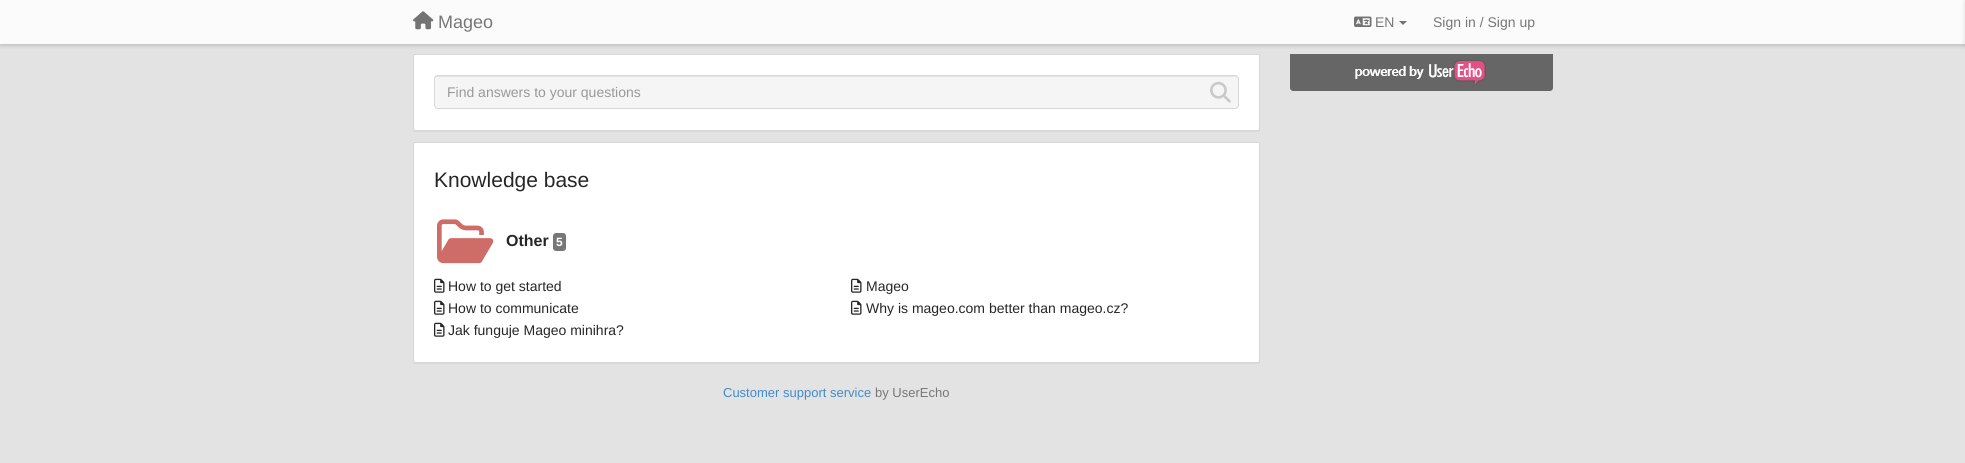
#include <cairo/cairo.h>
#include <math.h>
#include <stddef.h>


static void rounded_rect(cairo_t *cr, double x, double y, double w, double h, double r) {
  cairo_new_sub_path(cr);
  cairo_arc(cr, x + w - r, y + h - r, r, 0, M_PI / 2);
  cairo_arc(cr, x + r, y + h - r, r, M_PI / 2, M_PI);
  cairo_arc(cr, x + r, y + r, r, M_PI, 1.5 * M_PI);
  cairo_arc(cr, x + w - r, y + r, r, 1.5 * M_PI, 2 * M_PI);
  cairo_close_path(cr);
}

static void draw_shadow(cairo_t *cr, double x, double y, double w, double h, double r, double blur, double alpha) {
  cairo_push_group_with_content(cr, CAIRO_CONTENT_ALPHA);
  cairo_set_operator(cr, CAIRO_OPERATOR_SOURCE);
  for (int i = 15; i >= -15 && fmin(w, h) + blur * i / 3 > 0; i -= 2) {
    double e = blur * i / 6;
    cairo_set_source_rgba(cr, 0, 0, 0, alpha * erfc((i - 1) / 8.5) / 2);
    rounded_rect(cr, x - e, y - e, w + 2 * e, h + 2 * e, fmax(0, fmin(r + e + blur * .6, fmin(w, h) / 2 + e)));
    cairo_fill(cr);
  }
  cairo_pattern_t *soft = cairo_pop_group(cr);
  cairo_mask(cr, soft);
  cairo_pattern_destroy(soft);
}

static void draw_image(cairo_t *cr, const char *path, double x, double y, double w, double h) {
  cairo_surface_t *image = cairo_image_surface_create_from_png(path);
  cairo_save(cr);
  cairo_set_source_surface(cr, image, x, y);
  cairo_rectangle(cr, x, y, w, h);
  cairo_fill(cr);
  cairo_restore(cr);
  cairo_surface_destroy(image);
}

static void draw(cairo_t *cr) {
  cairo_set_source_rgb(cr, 227 / 255.0, 227 / 255.0, 227 / 255.0);
  cairo_paint(cr);
  cairo_set_source_rgb(cr, 0, 0, 0);
  draw_shadow(cr, 0, 2, 1965, 44, 0, 2, 0.15);
  cairo_set_source_rgb(cr, 251 / 255.0, 251 / 255.0, 251 / 255.0);
  cairo_rectangle(cr, 0, 0, 1965, 44);
  cairo_fill(cr);
  draw_image(cr, "images/1.png", 413, 11, 21, 19);
  draw_image(cr, "images/2.png", 1354, 16, 18, 11);
  cairo_set_source_rgb(cr, 115 / 255.0, 115 / 255.0, 115 / 255.0);
  cairo_new_path(cr);
  cairo_move_to(cr, 1399, 21);
  cairo_line_to(cr, 1407, 21);
  cairo_line_to(cr, 1403, 25);
  cairo_close_path(cr);
  cairo_fill(cr);
  cairo_set_source_rgb(cr, 0, 0, 0);
  draw_shadow(cr, 1965, 2, 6, 44, 0, 2, 0.15);
  cairo_set_source_rgb(cr, 102 / 255.0, 102 / 255.0, 102 / 255.0);
  cairo_new_path(cr);
  cairo_move_to(cr, 1290, 54);
  cairo_line_to(cr, 1553, 54);
  cairo_line_to(cr, 1553, 88);
  cairo_curve_to(cr, 1553, 89.5, 1551.5, 91, 1550, 91);
  cairo_line_to(cr, 1293, 91);
  cairo_curve_to(cr, 1291.5, 91, 1290, 89.5, 1290, 88);
  cairo_close_path(cr);
  cairo_fill(cr);
  draw_image(cr, "images/3.png", 1355, 60, 131, 25);
  cairo_set_source_rgb(cr, 216 / 255.0, 216 / 255.0, 216 / 255.0);
  cairo_rectangle(cr, 413, 54, 847, 1);
  cairo_fill(cr);
  cairo_set_source_rgb(cr, 1, 1, 1);
  cairo_new_path(cr);
  cairo_move_to(cr, 414, 55);
  cairo_line_to(cr, 1259, 55);
  cairo_line_to(cr, 1259, 129);
  cairo_curve_to(cr, 1259, 130, 1258, 130, 1257, 130);
  cairo_line_to(cr, 416, 130);
  cairo_curve_to(cr, 415, 130, 414, 130, 414, 129);
  cairo_close_path(cr);
  cairo_fill(cr);
  cairo_set_source_rgb(cr, 216 / 255.0, 216 / 255.0, 216 / 255.0);
  cairo_set_fill_rule(cr, CAIRO_FILL_RULE_EVEN_ODD);
  cairo_new_path(cr);
  cairo_move_to(cr, 413, 55);
  cairo_line_to(cr, 1260, 55);
  cairo_line_to(cr, 1260, 129);
  cairo_curve_to(cr, 1260, 131, 1259, 132, 1257, 132);
  cairo_line_to(cr, 416, 132);
  cairo_curve_to(cr, 414, 132, 413, 131, 413, 129);
  cairo_close_path(cr);
  cairo_move_to(cr, 414, 55);
  cairo_line_to(cr, 1259, 55);
  cairo_line_to(cr, 1259, 129);
  cairo_curve_to(cr, 1259, 130, 1258, 130, 1257, 130);
  cairo_line_to(cr, 416, 130);
  cairo_curve_to(cr, 415, 130, 414, 130, 414, 129);
  cairo_close_path(cr);
  cairo_fill(cr);
  cairo_set_source_rgb(cr, 245 / 255.0, 245 / 255.0, 245 / 255.0);
  rounded_rect(cr, 434, 75, 805, 34, 4);
  cairo_fill(cr);
  cairo_set_source_rgb(cr, 227 / 255.0, 227 / 255.0, 227 / 255.0);
  cairo_set_fill_rule(cr, CAIRO_FILL_RULE_WINDING);
  cairo_new_path(cr);
  cairo_move_to(cr, 438, 77);
  cairo_line_to(cr, 1235, 77);
  cairo_curve_to(cr, 1237, 77, 1238, 78, 1238, 80);
  cairo_curve_to(cr, 1238, 78, 1237, 76, 1235, 76);
  cairo_line_to(cr, 438, 76);
  cairo_curve_to(cr, 436, 76, 435, 78, 435, 80);
  cairo_curve_to(cr, 435, 78, 436, 77, 438, 77);
  cairo_close_path(cr);
  cairo_fill(cr);
  rounded_rect(cr, 434.5, 75.5, 804, 33, 3.5);
  cairo_set_source_rgb(cr, 216 / 255.0, 216 / 255.0, 216 / 255.0);
  cairo_set_line_width(cr, 1);
  cairo_stroke(cr);
  draw_image(cr, "images/4.png", 1210, 81, 21, 22);
  cairo_rectangle(cr, 413, 142, 847, 1);
  cairo_fill(cr);
  cairo_set_source_rgb(cr, 1, 1, 1);
  cairo_new_path(cr);
  cairo_move_to(cr, 414, 143);
  cairo_line_to(cr, 1259, 143);
  cairo_line_to(cr, 1259, 361);
  cairo_curve_to(cr, 1259, 362, 1258, 362, 1257, 362);
  cairo_line_to(cr, 416, 362);
  cairo_curve_to(cr, 415, 362, 414, 362, 414, 361);
  cairo_close_path(cr);
  cairo_fill(cr);
  cairo_set_source_rgb(cr, 216 / 255.0, 216 / 255.0, 216 / 255.0);
  cairo_set_fill_rule(cr, CAIRO_FILL_RULE_EVEN_ODD);
  cairo_new_path(cr);
  cairo_move_to(cr, 413, 143);
  cairo_line_to(cr, 1260, 143);
  cairo_line_to(cr, 1260, 361);
  cairo_curve_to(cr, 1260, 363, 1259, 364, 1257, 364);
  cairo_line_to(cr, 416, 364);
  cairo_curve_to(cr, 414, 364, 413, 363, 413, 361);
  cairo_close_path(cr);
  cairo_move_to(cr, 414, 143);
  cairo_line_to(cr, 1259, 143);
  cairo_line_to(cr, 1259, 361);
  cairo_curve_to(cr, 1259, 362, 1258, 362, 1257, 362);
  cairo_line_to(cr, 416, 362);
  cairo_curve_to(cr, 415, 362, 414, 362, 414, 361);
  cairo_close_path(cr);
  cairo_fill(cr);
  draw_image(cr, "images/5.png", 437, 219, 57, 45);
  cairo_set_source_rgb(cr, 119 / 255.0, 119 / 255.0, 119 / 255.0);
  rounded_rect(cr, 553, 233, 13, 18, 3);
  cairo_fill(cr);
  draw_image(cr, "images/6.png", 434, 278, 11, 15);
  draw_image(cr, "images/6.png", 851, 278, 11, 15);
  draw_image(cr, "images/6.png", 434, 300, 11, 15);
  draw_image(cr, "images/6.png", 851, 300, 11, 15);
  draw_image(cr, "images/6.png", 434, 322, 11, 15);
  cairo_select_font_face(cr, "Liberation Sans", CAIRO_FONT_SLANT_NORMAL, CAIRO_FONT_WEIGHT_NORMAL);
  cairo_set_font_size(cr, 18);
  cairo_move_to(cr, 438, 28);
  cairo_show_text(cr, "Mageo");
  cairo_set_font_size(cr, 14);
  cairo_move_to(cr, 1375, 27);
  cairo_show_text(cr, "EN");
  cairo_move_to(cr, 1433, 27);
  cairo_show_text(cr, "Sign in / Sign up");
  cairo_set_source_rgb(cr, 153 / 255.0, 153 / 255.0, 153 / 255.0);
  cairo_move_to(cr, 447, 97);
  cairo_show_text(cr, "Find answers to your questions");
  cairo_set_font_size(cr, 21);
  cairo_set_source_rgb(cr, 38 / 255.0, 38 / 255.0, 38 / 255.0);
  cairo_move_to(cr, 434, 187);
  cairo_show_text(cr, "Knowledge base");
  cairo_select_font_face(cr, "Liberation Sans", CAIRO_FONT_SLANT_NORMAL, CAIRO_FONT_WEIGHT_BOLD);
  cairo_set_font_size(cr, 16);
  cairo_move_to(cr, 506, 246);
  cairo_show_text(cr, "Other");
  cairo_set_font_size(cr, 12);
  cairo_set_source_rgb(cr, 1, 1, 1);
  cairo_move_to(cr, 556, 246);
  cairo_show_text(cr, "5");
  cairo_select_font_face(cr, "Liberation Sans", CAIRO_FONT_SLANT_NORMAL, CAIRO_FONT_WEIGHT_NORMAL);
  cairo_set_font_size(cr, 14);
  cairo_set_source_rgb(cr, 38 / 255.0, 38 / 255.0, 38 / 255.0);
  cairo_move_to(cr, 448, 291);
  cairo_show_text(cr, "How to get started");
  cairo_move_to(cr, 866, 291);
  cairo_show_text(cr, "Mageo");
  cairo_move_to(cr, 448, 313);
  cairo_show_text(cr, "How to communicate");
  cairo_move_to(cr, 866, 313);
  cairo_show_text(cr, "Why is mageo.com better than mageo.cz?");
  cairo_move_to(cr, 448, 335);
  cairo_show_text(cr, "Jak funguje Mageo minihra?");
  cairo_set_font_size(cr, 13);
  cairo_set_source_rgb(cr, 66 / 255.0, 139 / 255.0, 202 / 255.0);
  cairo_move_to(cr, 723, 397);
  cairo_show_text(cr, "Customer support service");
  cairo_set_source_rgb(cr, 119 / 255.0, 119 / 255.0, 119 / 255.0);
  cairo_move_to(cr, 875, 397);
  cairo_show_text(cr, "by UserEcho");
}

int main(void) {
  cairo_surface_t *surface = cairo_image_surface_create(CAIRO_FORMAT_RGB24, 1965, 463);
  cairo_t *cr = cairo_create(surface);
  cairo_font_options_t *options = cairo_font_options_create();
  cairo_font_options_set_hint_metrics(options, CAIRO_HINT_METRICS_OFF);
  cairo_font_options_set_hint_style(options, CAIRO_HINT_STYLE_NONE);
  cairo_set_font_options(cr, options);
  cairo_set_miter_limit(cr, 4);
  draw(cr);
  cairo_surface_write_to_png(surface, "out.png");
  cairo_font_options_destroy(options);
  cairo_destroy(cr);
  cairo_surface_destroy(surface);
  return 0;
}
